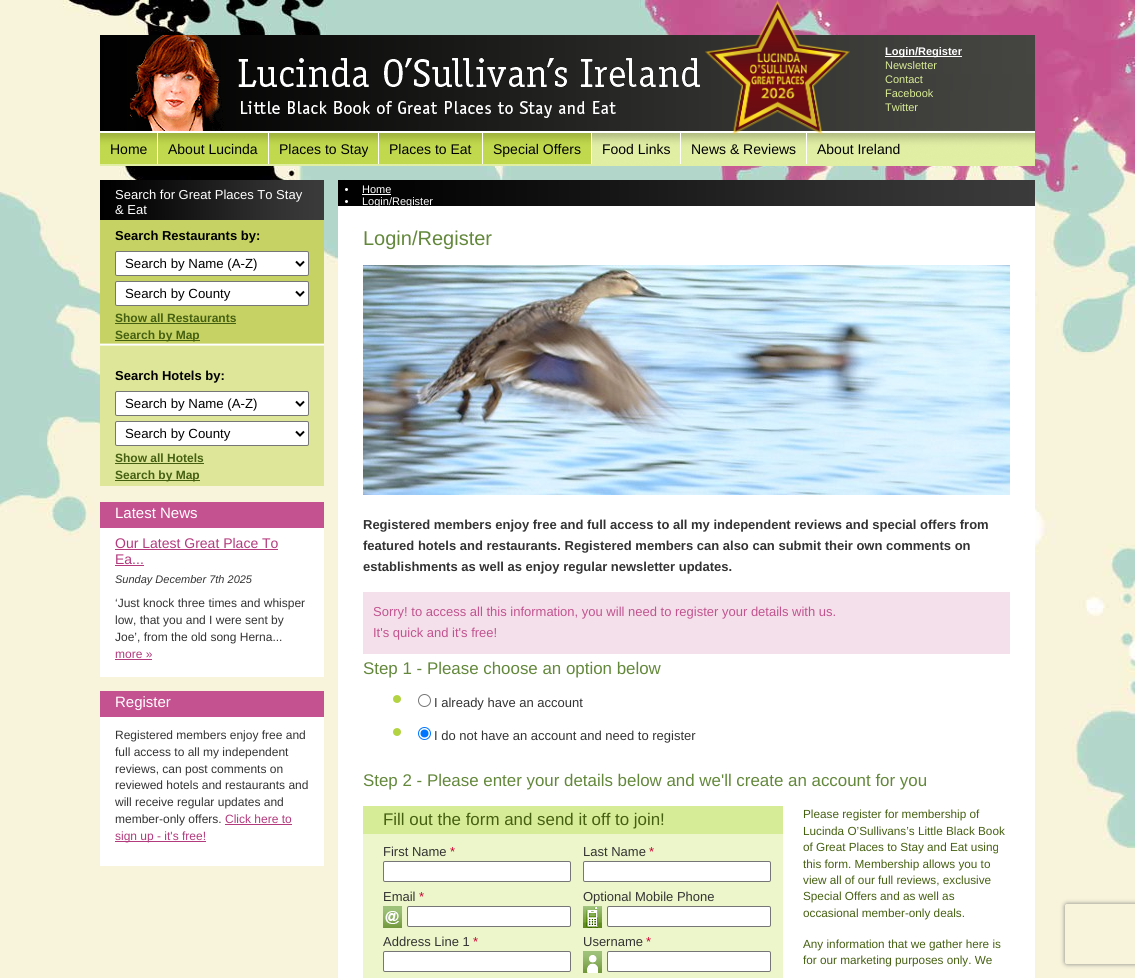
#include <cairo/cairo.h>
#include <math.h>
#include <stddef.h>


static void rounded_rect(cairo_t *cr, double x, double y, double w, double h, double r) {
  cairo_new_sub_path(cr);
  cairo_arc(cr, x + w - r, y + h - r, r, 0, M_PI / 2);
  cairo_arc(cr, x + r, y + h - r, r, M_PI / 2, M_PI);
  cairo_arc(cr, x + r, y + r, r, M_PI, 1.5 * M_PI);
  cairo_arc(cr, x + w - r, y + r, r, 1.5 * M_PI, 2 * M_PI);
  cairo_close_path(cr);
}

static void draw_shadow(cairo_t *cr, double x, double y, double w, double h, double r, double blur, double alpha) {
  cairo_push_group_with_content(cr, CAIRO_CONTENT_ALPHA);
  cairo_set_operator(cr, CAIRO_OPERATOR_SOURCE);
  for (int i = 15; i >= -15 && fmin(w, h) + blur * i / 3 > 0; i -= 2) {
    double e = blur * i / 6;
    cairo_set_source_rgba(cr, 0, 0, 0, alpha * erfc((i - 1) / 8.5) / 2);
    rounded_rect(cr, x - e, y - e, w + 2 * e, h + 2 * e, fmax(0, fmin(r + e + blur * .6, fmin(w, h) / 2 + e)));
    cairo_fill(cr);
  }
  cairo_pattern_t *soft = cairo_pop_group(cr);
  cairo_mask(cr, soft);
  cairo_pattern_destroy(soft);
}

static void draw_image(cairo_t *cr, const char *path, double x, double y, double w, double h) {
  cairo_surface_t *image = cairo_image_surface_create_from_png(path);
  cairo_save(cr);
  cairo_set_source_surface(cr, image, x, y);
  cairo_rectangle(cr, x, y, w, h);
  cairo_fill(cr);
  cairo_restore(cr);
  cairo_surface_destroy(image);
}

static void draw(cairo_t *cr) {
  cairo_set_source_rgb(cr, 1, 1, 1);
  cairo_paint(cr);
  draw_image(cr, "images/1.png", 0, 0, 1135, 978);
  draw_image(cr, "images/2.png", 100, 35, 935, 131);
  draw_image(cr, "images/3.png", 130, 35, 570, 96);
  cairo_set_source_rgb(cr, 1, 1, 1);
  cairo_rectangle(cr, 806, 133, 1, 31);
  cairo_fill(cr);
  draw_image(cr, "images/4.png", 705, 0, 145, 135);
  cairo_rectangle(cr, 885, 56, 77, 1);
  cairo_fill(cr);
  draw_image(cr, "images/5.png", 241, 101, 375, 17);
  cairo_rectangle(cr, 157, 133, 1, 31);
  cairo_fill(cr);
  draw_image(cr, "images/6.png", 100, 133, 57, 31);
  cairo_rectangle(cr, 268, 133, 1, 31);
  cairo_fill(cr);
  draw_image(cr, "images/7.png", 158, 133, 110, 31);
  cairo_rectangle(cr, 378, 133, 1, 31);
  cairo_fill(cr);
  draw_image(cr, "images/8.png", 269, 133, 109, 31);
  cairo_rectangle(cr, 482, 133, 1, 31);
  cairo_fill(cr);
  draw_image(cr, "images/9.png", 379, 133, 103, 31);
  cairo_rectangle(cr, 591, 133, 1, 31);
  cairo_fill(cr);
  draw_image(cr, "images/10.png", 483, 133, 108, 31);
  cairo_rectangle(cr, 680, 133, 1, 31);
  cairo_fill(cr);
  cairo_rectangle(cr, 338, 206, 697, 772);
  cairo_fill(cr);
  draw_image(cr, "images/11.png", 100, 180, 224, 306);
  rounded_rect(cr, 115.5, 251.5, 193, 24, 1.5);
  cairo_fill_preserve(cr);
  cairo_set_source_rgb(cr, 118 / 255.0, 118 / 255.0, 118 / 255.0);
  cairo_set_line_width(cr, 1);
  cairo_stroke(cr);
  cairo_new_path(cr);
  cairo_move_to(cr, 296, 261.5);
  cairo_line_to(cr, 300, 265.5);
  cairo_line_to(cr, 304, 261.5);
  cairo_set_source_rgb(cr, 0, 0, 0);
  cairo_set_line_width(cr, 2);
  cairo_stroke(cr);
  cairo_set_source_rgb(cr, 1, 1, 1);
  rounded_rect(cr, 115.5, 281.5, 193, 24, 1.5);
  cairo_fill_preserve(cr);
  cairo_set_source_rgb(cr, 118 / 255.0, 118 / 255.0, 118 / 255.0);
  cairo_set_line_width(cr, 1);
  cairo_stroke(cr);
  cairo_new_path(cr);
  cairo_move_to(cr, 296, 291.5);
  cairo_line_to(cr, 300, 295.5);
  cairo_line_to(cr, 304, 291.5);
  cairo_set_source_rgb(cr, 0, 0, 0);
  cairo_set_line_width(cr, 2);
  cairo_stroke(cr);
  cairo_set_source_rgb(cr, 69 / 255.0, 96 / 255.0, 17 / 255.0);
  cairo_rectangle(cr, 115, 323, 121, 1);
  cairo_fill(cr);
  cairo_rectangle(cr, 115, 340, 85, 1);
  cairo_fill(cr);
  cairo_set_source_rgb(cr, 1, 1, 1);
  rounded_rect(cr, 115.5, 391.5, 193, 24, 1.5);
  cairo_fill_preserve(cr);
  cairo_set_source_rgb(cr, 118 / 255.0, 118 / 255.0, 118 / 255.0);
  cairo_set_line_width(cr, 1);
  cairo_stroke(cr);
  cairo_new_path(cr);
  cairo_move_to(cr, 296, 401.5);
  cairo_line_to(cr, 300, 405.5);
  cairo_line_to(cr, 304, 401.5);
  cairo_set_source_rgb(cr, 0, 0, 0);
  cairo_set_line_width(cr, 2);
  cairo_stroke(cr);
  cairo_set_source_rgb(cr, 1, 1, 1);
  rounded_rect(cr, 115.5, 421.5, 193, 24, 1.5);
  cairo_fill_preserve(cr);
  cairo_set_source_rgb(cr, 118 / 255.0, 118 / 255.0, 118 / 255.0);
  cairo_set_line_width(cr, 1);
  cairo_stroke(cr);
  cairo_new_path(cr);
  cairo_move_to(cr, 296, 431.5);
  cairo_line_to(cr, 300, 435.5);
  cairo_line_to(cr, 304, 431.5);
  cairo_set_source_rgb(cr, 0, 0, 0);
  cairo_set_line_width(cr, 2);
  cairo_stroke(cr);
  cairo_set_source_rgb(cr, 69 / 255.0, 96 / 255.0, 17 / 255.0);
  cairo_rectangle(cr, 115, 463, 89, 1);
  cairo_fill(cr);
  cairo_rectangle(cr, 115, 480, 85, 1);
  cairo_fill(cr);
  cairo_set_source_rgb(cr, 1, 1, 1);
  cairo_rectangle(cr, 100, 528, 224, 149);
  cairo_fill(cr);
  cairo_set_source_rgb(cr, 197 / 255.0, 82 / 255.0, 144 / 255.0);
  cairo_rectangle(cr, 100, 502, 224, 26);
  cairo_fill(cr);
  cairo_set_source_rgb(cr, 179 / 255.0, 58 / 255.0, 125 / 255.0);
  cairo_rectangle(cr, 115, 549, 163, 1);
  cairo_fill(cr);
  cairo_rectangle(cr, 115, 565, 29, 1);
  cairo_fill(cr);
  cairo_rectangle(cr, 115, 659, 37, 1);
  cairo_fill(cr);
  cairo_set_source_rgb(cr, 1, 1, 1);
  cairo_rectangle(cr, 100, 717, 224, 149);
  cairo_fill(cr);
  cairo_set_source_rgb(cr, 197 / 255.0, 82 / 255.0, 144 / 255.0);
  cairo_rectangle(cr, 100, 691, 224, 26);
  cairo_fill(cr);
  cairo_set_source_rgb(cr, 179 / 255.0, 58 / 255.0, 125 / 255.0);
  cairo_rectangle(cr, 225, 824, 67, 1);
  cairo_fill(cr);
  cairo_rectangle(cr, 115, 841, 91, 1);
  cairo_fill(cr);
  draw_image(cr, "images/12.png", 338, 180, 697, 26);
  cairo_set_source_rgb(cr, 1, 1, 1);
  cairo_arc(cr, 346.5, 189.5, 1.5, 0, 2 * M_PI);
  cairo_fill(cr);
  cairo_rectangle(cr, 362, 194, 29, 1);
  cairo_fill(cr);
  cairo_arc(cr, 346.5, 201.5, 1.5, 0, 2 * M_PI);
  cairo_fill(cr);
  draw_image(cr, "images/13.png", 363, 265, 647, 230);
  cairo_set_source_rgb(cr, 244 / 255.0, 224 / 255.0, 235 / 255.0);
  cairo_rectangle(cr, 363, 592, 647, 62);
  cairo_fill(cr);
  draw_image(cr, "images/14.png", 393, 695, 8, 8);
  cairo_arc(cr, 424.5, 700.5, 6, 0, 2 * M_PI);
  cairo_set_source_rgb(cr, 118 / 255.0, 118 / 255.0, 118 / 255.0);
  cairo_set_line_width(cr, 1);
  cairo_stroke(cr);
  draw_image(cr, "images/14.png", 393, 728, 8, 8);
  cairo_arc(cr, 424.5, 733.5, 6, 0, 2 * M_PI);
  cairo_set_source_rgb(cr, 0, 117 / 255.0, 1);
  cairo_stroke(cr);
  cairo_arc(cr, 424.5, 733.5, 4, 0, 2 * M_PI);
  cairo_fill(cr);
  cairo_set_source_rgb(cr, 215 / 255.0, 236 / 255.0, 151 / 255.0);
  cairo_rectangle(cr, 363, 806, 420, 28);
  cairo_fill(cr);
  cairo_set_source_rgb(cr, 236 / 255.0, 246 / 255.0, 202 / 255.0);
  cairo_rectangle(cr, 363, 834, 420, 144);
  cairo_fill(cr);
  cairo_set_source_rgb(cr, 1, 1, 1);
  rounded_rect(cr, 383.5, 861.5, 187, 20, 1.5);
  cairo_fill_preserve(cr);
  cairo_set_source_rgb(cr, 118 / 255.0, 118 / 255.0, 118 / 255.0);
  cairo_stroke(cr);
  cairo_set_source_rgb(cr, 1, 1, 1);
  rounded_rect(cr, 583.5, 861.5, 187, 20, 1.5);
  cairo_fill_preserve(cr);
  cairo_set_source_rgb(cr, 118 / 255.0, 118 / 255.0, 118 / 255.0);
  cairo_stroke(cr);
  draw_image(cr, "images/15.png", 383, 906, 19, 22);
  cairo_set_source_rgb(cr, 1, 1, 1);
  rounded_rect(cr, 407.5, 906.5, 163, 20, 1.5);
  cairo_fill_preserve(cr);
  cairo_set_source_rgb(cr, 118 / 255.0, 118 / 255.0, 118 / 255.0);
  cairo_stroke(cr);
  draw_image(cr, "images/16.png", 583, 906, 19, 22);
  cairo_set_source_rgb(cr, 1, 1, 1);
  rounded_rect(cr, 607.5, 906.5, 163, 20, 1.5);
  cairo_fill_preserve(cr);
  cairo_set_source_rgb(cr, 118 / 255.0, 118 / 255.0, 118 / 255.0);
  cairo_stroke(cr);
  cairo_set_source_rgb(cr, 1, 1, 1);
  rounded_rect(cr, 383.5, 951.5, 187, 20, 1.5);
  cairo_fill_preserve(cr);
  cairo_set_source_rgb(cr, 118 / 255.0, 118 / 255.0, 118 / 255.0);
  cairo_stroke(cr);
  draw_image(cr, "images/17.png", 583, 951, 19, 22);
  cairo_set_source_rgb(cr, 1, 1, 1);
  rounded_rect(cr, 607.5, 951.5, 163, 20, 1.5);
  cairo_fill_preserve(cr);
  cairo_set_source_rgb(cr, 118 / 255.0, 118 / 255.0, 118 / 255.0);
  cairo_stroke(cr);
  cairo_save(cr);
  cairo_set_fill_rule(cr, CAIRO_FILL_RULE_EVEN_ODD);
  cairo_new_path(cr);
  cairo_move_to(cr, 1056, 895);
  cairo_line_to(cr, 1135, 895);
  cairo_line_to(cr, 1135, 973);
  cairo_line_to(cr, 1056, 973);
  cairo_close_path(cr);
  cairo_move_to(cr, 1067, 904);
  cairo_line_to(cr, 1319, 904);
  cairo_curve_to(cr, 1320, 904, 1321, 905, 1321, 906);
  cairo_line_to(cr, 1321, 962);
  cairo_curve_to(cr, 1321, 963, 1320, 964, 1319, 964);
  cairo_line_to(cr, 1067, 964);
  cairo_curve_to(cr, 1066, 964, 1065, 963, 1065, 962);
  cairo_line_to(cr, 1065, 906);
  cairo_curve_to(cr, 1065, 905, 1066, 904, 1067, 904);
  cairo_close_path(cr);
  cairo_clip(cr);
  cairo_set_source_rgb(cr, 128 / 255.0, 128 / 255.0, 128 / 255.0);
  draw_shadow(cr, 1065, 904, 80, 60, 2, 2.5, 1);
  cairo_restore(cr);
  cairo_select_font_face(cr, "Liberation Sans", CAIRO_FONT_SLANT_NORMAL, CAIRO_FONT_WEIGHT_BOLD);
  cairo_set_font_size(cr, 11);
  cairo_set_source_rgb(cr, 1, 1, 1);
  cairo_move_to(cr, 885, 55);
  cairo_show_text(cr, "Login/Register");
  cairo_select_font_face(cr, "Liberation Sans", CAIRO_FONT_SLANT_NORMAL, CAIRO_FONT_WEIGHT_NORMAL);
  cairo_set_source_rgb(cr, 217 / 255.0, 237 / 255.0, 150 / 255.0);
  cairo_move_to(cr, 885, 69);
  cairo_show_text(cr, "Newsletter");
  cairo_move_to(cr, 885, 83);
  cairo_show_text(cr, "Contact");
  cairo_move_to(cr, 885, 97);
  cairo_show_text(cr, "Facebook");
  cairo_move_to(cr, 885, 111);
  cairo_show_text(cr, "Twitter");
  cairo_set_font_size(cr, 14);
  cairo_set_source_rgb(cr, 0, 0, 0);
  cairo_move_to(cr, 110, 154);
  cairo_show_text(cr, "Home");
  cairo_move_to(cr, 168, 154);
  cairo_show_text(cr, "About Lucinda");
  cairo_move_to(cr, 279, 154);
  cairo_show_text(cr, "Places to Stay");
  cairo_move_to(cr, 389, 154);
  cairo_show_text(cr, "Places to Eat");
  cairo_move_to(cr, 493, 154);
  cairo_show_text(cr, "Special Offers");
  cairo_move_to(cr, 602, 154);
  cairo_show_text(cr, "Food Links");
  cairo_move_to(cr, 691, 154);
  cairo_show_text(cr, "News & Reviews");
  cairo_move_to(cr, 817, 154);
  cairo_show_text(cr, "About Ireland");
  cairo_set_font_size(cr, 13);
  cairo_set_source_rgb(cr, 1, 1, 1);
  cairo_move_to(cr, 115, 199);
  cairo_show_text(cr, "Search for Great Places To Stay");
  cairo_move_to(cr, 115, 214);
  cairo_show_text(cr, "& Eat");
  cairo_select_font_face(cr, "Liberation Sans", CAIRO_FONT_SLANT_NORMAL, CAIRO_FONT_WEIGHT_BOLD);
  cairo_set_source_rgb(cr, 0, 0, 0);
  cairo_move_to(cr, 115, 240);
  cairo_show_text(cr, "Search Restaurants by:");
  cairo_select_font_face(cr, "Liberation Sans", CAIRO_FONT_SLANT_NORMAL, CAIRO_FONT_WEIGHT_NORMAL);
  cairo_set_font_size(cr, 13.25);
  cairo_move_to(cr, 125, 268);
  cairo_show_text(cr, "Search by Name (A-Z)");
  cairo_move_to(cr, 125, 298);
  cairo_show_text(cr, "Search by County");
  cairo_select_font_face(cr, "Liberation Sans", CAIRO_FONT_SLANT_NORMAL, CAIRO_FONT_WEIGHT_BOLD);
  cairo_set_font_size(cr, 12);
  cairo_set_source_rgb(cr, 69 / 255.0, 96 / 255.0, 17 / 255.0);
  cairo_move_to(cr, 115, 322);
  cairo_show_text(cr, "Show all Restaurants");
  cairo_move_to(cr, 115, 339);
  cairo_show_text(cr, "Search by Map");
  cairo_set_font_size(cr, 13);
  cairo_set_source_rgb(cr, 0, 0, 0);
  cairo_move_to(cr, 115, 380);
  cairo_show_text(cr, "Search Hotels by:");
  cairo_select_font_face(cr, "Liberation Sans", CAIRO_FONT_SLANT_NORMAL, CAIRO_FONT_WEIGHT_NORMAL);
  cairo_set_font_size(cr, 13.25);
  cairo_move_to(cr, 125, 408);
  cairo_show_text(cr, "Search by Name (A-Z)");
  cairo_move_to(cr, 125, 438);
  cairo_show_text(cr, "Search by County");
  cairo_select_font_face(cr, "Liberation Sans", CAIRO_FONT_SLANT_NORMAL, CAIRO_FONT_WEIGHT_BOLD);
  cairo_set_font_size(cr, 12);
  cairo_set_source_rgb(cr, 69 / 255.0, 96 / 255.0, 17 / 255.0);
  cairo_move_to(cr, 115, 462);
  cairo_show_text(cr, "Show all Hotels");
  cairo_move_to(cr, 115, 479);
  cairo_show_text(cr, "Search by Map");
  cairo_select_font_face(cr, "Liberation Sans", CAIRO_FONT_SLANT_NORMAL, CAIRO_FONT_WEIGHT_NORMAL);
  cairo_set_font_size(cr, 15);
  cairo_set_source_rgb(cr, 1, 1, 1);
  cairo_move_to(cr, 115, 518);
  cairo_show_text(cr, "Latest News");
  cairo_set_font_size(cr, 14);
  cairo_set_source_rgb(cr, 179 / 255.0, 58 / 255.0, 125 / 255.0);
  cairo_move_to(cr, 115, 548);
  cairo_show_text(cr, "Our Latest Great Place To");
  cairo_move_to(cr, 115, 564);
  cairo_show_text(cr, "Ea...");
  cairo_select_font_face(cr, "Liberation Sans", CAIRO_FONT_SLANT_ITALIC, CAIRO_FONT_WEIGHT_NORMAL);
  cairo_set_font_size(cr, 11);
  cairo_set_source_rgb(cr, 51 / 255.0, 51 / 255.0, 51 / 255.0);
  cairo_move_to(cr, 115, 583);
  cairo_show_text(cr, "Sunday December 7th 2025");
  cairo_select_font_face(cr, "Liberation Sans", CAIRO_FONT_SLANT_NORMAL, CAIRO_FONT_WEIGHT_NORMAL);
  cairo_set_font_size(cr, 12);
  cairo_move_to(cr, 115, 607);
  cairo_show_text(cr, "‘Just knock three times and whisper");
  cairo_move_to(cr, 115, 624);
  cairo_show_text(cr, "low, that you and I were sent by");
  cairo_move_to(cr, 115, 641);
  cairo_show_text(cr, "Joe’, from the old song Herna...");
  cairo_set_source_rgb(cr, 179 / 255.0, 58 / 255.0, 125 / 255.0);
  cairo_move_to(cr, 115, 658);
  cairo_show_text(cr, "more »");
  cairo_set_font_size(cr, 15);
  cairo_set_source_rgb(cr, 1, 1, 1);
  cairo_move_to(cr, 115, 707);
  cairo_show_text(cr, "Register");
  cairo_set_font_size(cr, 12);
  cairo_set_source_rgb(cr, 51 / 255.0, 51 / 255.0, 51 / 255.0);
  cairo_move_to(cr, 115, 739);
  cairo_show_text(cr, "Registered members enjoy free and");
  cairo_move_to(cr, 115, 756);
  cairo_show_text(cr, "full access to all my independent");
  cairo_move_to(cr, 115, 773);
  cairo_show_text(cr, "reviews, can post comments on");
  cairo_move_to(cr, 115, 789);
  cairo_show_text(cr, "reviewed hotels and restaurants and");
  cairo_move_to(cr, 115, 806);
  cairo_show_text(cr, "will receive regular updates and");
  cairo_move_to(cr, 115, 823);
  cairo_show_text(cr, "member-only offers.");
  cairo_set_source_rgb(cr, 179 / 255.0, 58 / 255.0, 125 / 255.0);
  cairo_move_to(cr, 225, 823);
  cairo_show_text(cr, "Click here to");
  cairo_move_to(cr, 115, 840);
  cairo_show_text(cr, "sign up - it's free!");
  cairo_set_font_size(cr, 11);
  cairo_set_source_rgb(cr, 1, 1, 1);
  cairo_move_to(cr, 362, 193);
  cairo_show_text(cr, "Home");
  cairo_move_to(cr, 362, 205);
  cairo_show_text(cr, "Login/Register");
  cairo_set_font_size(cr, 20);
  cairo_set_source_rgb(cr, 99 / 255.0, 136 / 255.0, 59 / 255.0);
  cairo_move_to(cr, 363, 245);
  cairo_show_text(cr, "Login/Register");
  cairo_select_font_face(cr, "Liberation Sans", CAIRO_FONT_SLANT_NORMAL, CAIRO_FONT_WEIGHT_BOLD);
  cairo_set_font_size(cr, 13);
  cairo_set_source_rgb(cr, 51 / 255.0, 51 / 255.0, 51 / 255.0);
  cairo_move_to(cr, 363, 529);
  cairo_show_text(cr, "Registered members enjoy free and full access to all my independent reviews and special offers from");
  cairo_move_to(cr, 363, 550);
  cairo_show_text(cr, "featured hotels and restaurants. Registered members can also can submit their own comments on");
  cairo_move_to(cr, 363, 571);
  cairo_show_text(cr, "establishments as well as enjoy regular newsletter updates.");
  cairo_select_font_face(cr, "Liberation Sans", CAIRO_FONT_SLANT_NORMAL, CAIRO_FONT_WEIGHT_NORMAL);
  cairo_set_source_rgb(cr, 193 / 255.0, 83 / 255.0, 143 / 255.0);
  cairo_move_to(cr, 373, 616);
  cairo_show_text(cr, "Sorry! to access all this information, you will need to register your details with us.");
  cairo_move_to(cr, 373, 637);
  cairo_show_text(cr, "It's quick and it's free!");
  cairo_set_font_size(cr, 16.9);
  cairo_set_source_rgb(cr, 99 / 255.0, 136 / 255.0, 59 / 255.0);
  cairo_move_to(cr, 363, 674);
  cairo_show_text(cr, "Step 1 - Please choose an option below");
  cairo_set_font_size(cr, 13);
  cairo_set_source_rgb(cr, 51 / 255.0, 51 / 255.0, 51 / 255.0);
  cairo_move_to(cr, 434, 707);
  cairo_show_text(cr, "I already have an account");
  cairo_move_to(cr, 434, 740);
  cairo_show_text(cr, "I do not have an account and need to register");
  cairo_set_font_size(cr, 16.9);
  cairo_set_source_rgb(cr, 99 / 255.0, 136 / 255.0, 59 / 255.0);
  cairo_move_to(cr, 363, 786);
  cairo_show_text(cr, "Step 2 - Please enter your details below and we'll create an account for you");
  cairo_set_source_rgb(cr, 69 / 255.0, 96 / 255.0, 17 / 255.0);
  cairo_move_to(cr, 383, 825);
  cairo_show_text(cr, "Fill out the form and send it off to join!");
  cairo_set_font_size(cr, 13);
  cairo_set_source_rgb(cr, 51 / 255.0, 51 / 255.0, 51 / 255.0);
  cairo_move_to(cr, 383, 856);
  cairo_show_text(cr, "First Name");
  cairo_set_source_rgb(cr, 204 / 255.0, 0, 51 / 255.0);
  cairo_move_to(cr, 450, 856);
  cairo_show_text(cr, "*");
  cairo_set_source_rgb(cr, 51 / 255.0, 51 / 255.0, 51 / 255.0);
  cairo_move_to(cr, 583, 856);
  cairo_show_text(cr, "Last Name");
  cairo_set_source_rgb(cr, 204 / 255.0, 0, 51 / 255.0);
  cairo_move_to(cr, 649, 856);
  cairo_show_text(cr, "*");
  cairo_set_source_rgb(cr, 51 / 255.0, 51 / 255.0, 51 / 255.0);
  cairo_move_to(cr, 383, 901);
  cairo_show_text(cr, "Email");
  cairo_set_source_rgb(cr, 204 / 255.0, 0, 51 / 255.0);
  cairo_move_to(cr, 419, 901);
  cairo_show_text(cr, "*");
  cairo_set_source_rgb(cr, 51 / 255.0, 51 / 255.0, 51 / 255.0);
  cairo_move_to(cr, 583, 901);
  cairo_show_text(cr, "Optional Mobile Phone");
  cairo_move_to(cr, 383, 946);
  cairo_show_text(cr, "Address Line 1");
  cairo_set_source_rgb(cr, 204 / 255.0, 0, 51 / 255.0);
  cairo_move_to(cr, 473, 946);
  cairo_show_text(cr, "*");
  cairo_set_source_rgb(cr, 51 / 255.0, 51 / 255.0, 51 / 255.0);
  cairo_move_to(cr, 583, 946);
  cairo_show_text(cr, "Username");
  cairo_set_source_rgb(cr, 204 / 255.0, 0, 51 / 255.0);
  cairo_move_to(cr, 646, 946);
  cairo_show_text(cr, "*");
  cairo_set_font_size(cr, 11.75);
  cairo_set_source_rgb(cr, 69 / 255.0, 96 / 255.0, 17 / 255.0);
  cairo_move_to(cr, 803, 818);
  cairo_show_text(cr, "Please register for membership of");
  cairo_move_to(cr, 803, 835);
  cairo_show_text(cr, "Lucinda O’Sullivans’s Little Black Book");
  cairo_move_to(cr, 803, 851);
  cairo_show_text(cr, "of Great Places to Stay and Eat using");
  cairo_move_to(cr, 803, 868);
  cairo_show_text(cr, "this form. Membership allows you to");
  cairo_move_to(cr, 803, 884);
  cairo_show_text(cr, "view all of our full reviews, exclusive");
  cairo_move_to(cr, 803, 900);
  cairo_show_text(cr, "Special Offers and as well as");
  cairo_move_to(cr, 803, 917);
  cairo_show_text(cr, "occasional member-only deals.");
  cairo_move_to(cr, 803, 948);
  cairo_show_text(cr, "Any information that we gather here is");
  cairo_move_to(cr, 803, 964);
  cairo_show_text(cr, "for our marketing purposes only. We");
}

int main(void) {
  cairo_surface_t *surface = cairo_image_surface_create(CAIRO_FORMAT_RGB24, 1135, 978);
  cairo_t *cr = cairo_create(surface);
  cairo_font_options_t *options = cairo_font_options_create();
  cairo_font_options_set_hint_metrics(options, CAIRO_HINT_METRICS_OFF);
  cairo_font_options_set_hint_style(options, CAIRO_HINT_STYLE_NONE);
  cairo_set_font_options(cr, options);
  cairo_set_miter_limit(cr, 4);
  draw(cr);
  cairo_surface_write_to_png(surface, "out.png");
  cairo_font_options_destroy(options);
  cairo_destroy(cr);
  cairo_surface_destroy(surface);
  return 0;
}
